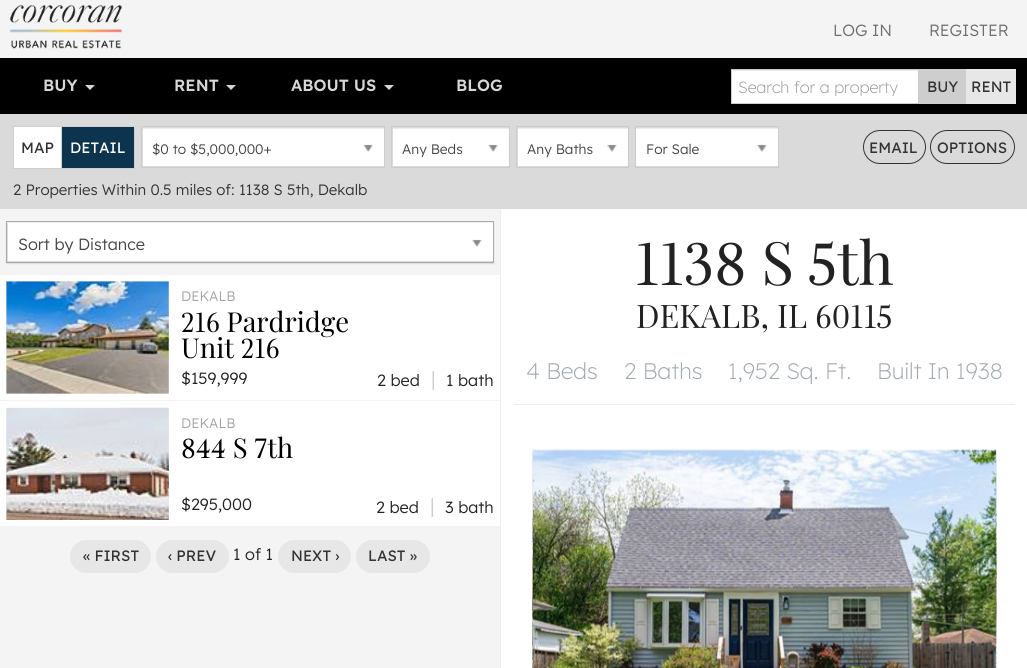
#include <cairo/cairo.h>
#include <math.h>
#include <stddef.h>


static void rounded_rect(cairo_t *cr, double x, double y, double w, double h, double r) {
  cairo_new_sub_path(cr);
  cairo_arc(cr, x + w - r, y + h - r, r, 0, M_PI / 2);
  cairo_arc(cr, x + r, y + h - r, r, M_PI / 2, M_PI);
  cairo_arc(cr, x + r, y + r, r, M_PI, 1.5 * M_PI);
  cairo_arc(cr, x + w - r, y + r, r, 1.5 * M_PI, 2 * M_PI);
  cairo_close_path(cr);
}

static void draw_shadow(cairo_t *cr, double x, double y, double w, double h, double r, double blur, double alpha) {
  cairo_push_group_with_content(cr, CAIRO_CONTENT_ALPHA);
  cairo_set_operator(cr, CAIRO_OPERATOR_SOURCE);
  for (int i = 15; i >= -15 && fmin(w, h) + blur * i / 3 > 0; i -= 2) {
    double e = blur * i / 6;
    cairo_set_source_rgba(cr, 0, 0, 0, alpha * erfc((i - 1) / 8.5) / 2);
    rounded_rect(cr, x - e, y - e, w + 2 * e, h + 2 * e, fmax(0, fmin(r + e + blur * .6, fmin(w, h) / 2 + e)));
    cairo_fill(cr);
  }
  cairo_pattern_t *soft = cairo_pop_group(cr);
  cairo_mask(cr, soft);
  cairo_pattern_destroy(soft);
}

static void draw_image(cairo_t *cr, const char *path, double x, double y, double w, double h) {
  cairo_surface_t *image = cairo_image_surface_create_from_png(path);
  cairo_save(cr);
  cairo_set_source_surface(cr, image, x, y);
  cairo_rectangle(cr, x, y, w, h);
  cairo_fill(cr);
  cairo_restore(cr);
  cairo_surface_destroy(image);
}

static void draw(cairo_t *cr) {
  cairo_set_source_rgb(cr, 244 / 255.0, 244 / 255.0, 244 / 255.0);
  cairo_paint(cr);
  draw_image(cr, "images/1.png", 10, 5, 112, 44);
  cairo_set_source_rgb(cr, 0, 0, 0);
  cairo_rectangle(cr, 0, 58, 1027, 56);
  cairo_fill(cr);
  cairo_set_source_rgb(cr, 215 / 255.0, 215 / 255.0, 215 / 255.0);
  cairo_new_path(cr);
  cairo_move_to(cr, 85, 85);
  cairo_line_to(cr, 95, 85);
  cairo_line_to(cr, 90, 90);
  cairo_close_path(cr);
  cairo_fill(cr);
  cairo_new_path(cr);
  cairo_move_to(cr, 226, 85);
  cairo_line_to(cr, 236, 85);
  cairo_line_to(cr, 231, 90);
  cairo_close_path(cr);
  cairo_fill(cr);
  cairo_new_path(cr);
  cairo_move_to(cr, 384, 85);
  cairo_line_to(cr, 394, 85);
  cairo_line_to(cr, 389, 90);
  cairo_close_path(cr);
  cairo_fill(cr);
  cairo_set_source_rgb(cr, 1, 1, 1);
  cairo_rectangle(cr, 732, 70, 186, 33);
  cairo_fill(cr);
  cairo_set_source_rgb(cr, 236 / 255.0, 236 / 255.0, 236 / 255.0);
  cairo_rectangle(cr, 733, 70, 185, 1);
  cairo_fill(cr);
  cairo_rectangle(cr, 731.5, 69.5, 187, 34);
  cairo_set_source_rgb(cr, 204 / 255.0, 204 / 255.0, 204 / 255.0);
  cairo_set_line_width(cr, 1);
  cairo_stroke(cr);
  cairo_set_source_rgb(cr, 206 / 255.0, 206 / 255.0, 206 / 255.0);
  cairo_rectangle(cr, 919, 69, 47, 35);
  cairo_fill(cr);
  cairo_set_source_rgb(cr, 231 / 255.0, 231 / 255.0, 231 / 255.0);
  cairo_rectangle(cr, 966, 69, 50, 35);
  cairo_fill(cr);
  cairo_set_source_rgb(cr, 218 / 255.0, 218 / 255.0, 218 / 255.0);
  cairo_rectangle(cr, 0, 114, 1027, 95);
  cairo_fill(cr);
  cairo_set_source_rgb(cr, 1, 1, 1);
  cairo_rectangle(cr, 14, 127, 47, 41);
  cairo_fill(cr);
  cairo_rectangle(cr, 13.5, 126.5, 49, 42);
  cairo_set_source_rgb(cr, 207 / 255.0, 207 / 255.0, 207 / 255.0);
  cairo_stroke(cr);
  cairo_set_source_rgb(cr, 12 / 255.0, 52 / 255.0, 78 / 255.0);
  cairo_rectangle(cr, 61.5, 126.5, 73, 42);
  cairo_fill_preserve(cr);
  cairo_set_source_rgb(cr, 207 / 255.0, 207 / 255.0, 207 / 255.0);
  cairo_stroke(cr);
  cairo_set_source_rgb(cr, 1, 1, 1);
  cairo_rectangle(cr, 143, 129, 241, 37);
  cairo_fill(cr);
  cairo_set_source_rgb(cr, 236 / 255.0, 236 / 255.0, 236 / 255.0);
  cairo_rectangle(cr, 143, 128, 241, 1);
  cairo_fill(cr);
  cairo_rectangle(cr, 141.5, 126.5, 243, 41);
  cairo_set_source_rgb(cr, 204 / 255.0, 204 / 255.0, 204 / 255.0);
  cairo_stroke(cr);
  draw_image(cr, "images/2.png", 363, 144, 10, 8);
  cairo_set_source_rgb(cr, 1, 1, 1);
  cairo_rectangle(cr, 393, 129, 116, 37);
  cairo_fill(cr);
  cairo_set_source_rgb(cr, 236 / 255.0, 236 / 255.0, 236 / 255.0);
  cairo_rectangle(cr, 393, 128, 116, 1);
  cairo_fill(cr);
  cairo_rectangle(cr, 391.5, 126.5, 118, 41);
  cairo_set_source_rgb(cr, 204 / 255.0, 204 / 255.0, 204 / 255.0);
  cairo_stroke(cr);
  draw_image(cr, "images/2.png", 488, 144, 10, 8);
  cairo_set_source_rgb(cr, 1, 1, 1);
  cairo_rectangle(cr, 518, 129, 110, 37);
  cairo_fill(cr);
  cairo_set_source_rgb(cr, 236 / 255.0, 236 / 255.0, 236 / 255.0);
  cairo_rectangle(cr, 518, 128, 110, 1);
  cairo_fill(cr);
  cairo_rectangle(cr, 516.5, 126.5, 112, 41);
  cairo_set_source_rgb(cr, 204 / 255.0, 204 / 255.0, 204 / 255.0);
  cairo_stroke(cr);
  draw_image(cr, "images/3.png", 607, 144, 10, 8);
  cairo_set_source_rgb(cr, 1, 1, 1);
  cairo_rectangle(cr, 636, 129, 142, 37);
  cairo_fill(cr);
  cairo_set_source_rgb(cr, 236 / 255.0, 236 / 255.0, 236 / 255.0);
  cairo_rectangle(cr, 636, 128, 142, 1);
  cairo_fill(cr);
  cairo_rectangle(cr, 635.5, 126.5, 143, 41);
  cairo_set_source_rgb(cr, 204 / 255.0, 204 / 255.0, 204 / 255.0);
  cairo_stroke(cr);
  draw_image(cr, "images/4.png", 757, 144, 10, 8);
  rounded_rect(cr, 863.5, 130.5, 62, 33, 16.5);
  cairo_set_source_rgb(cr, 51 / 255.0, 51 / 255.0, 51 / 255.0);
  cairo_stroke(cr);
  rounded_rect(cr, 930.5, 130.5, 84, 33, 16.5);
  cairo_stroke(cr);
  cairo_set_source_rgb(cr, 0, 0, 0);
  draw_shadow(cr, 6, 223, 488, 41, 0, 0.5, 0.1);
  cairo_set_source_rgb(cr, 1, 1, 1);
  cairo_rectangle(cr, 8, 223, 485, 38);
  cairo_fill(cr);
  cairo_rectangle(cr, 6.5, 221.5, 487, 41);
  cairo_set_source_rgb(cr, 170 / 255.0, 170 / 255.0, 170 / 255.0);
  cairo_stroke(cr);
  draw_image(cr, "images/4.png", 472, 239, 10, 8);
  cairo_set_source_rgb(cr, 1, 1, 1);
  cairo_rectangle(cr, 0, 275, 500, 125);
  cairo_fill(cr);
  cairo_set_source_rgb(cr, 238 / 255.0, 238 / 255.0, 238 / 255.0);
  cairo_rectangle(cr, 6, 281, 163, 113);
  cairo_fill(cr);
  draw_image(cr, "images/5.png", 6, 281, 163, 113);
  cairo_set_source_rgb(cr, 1, 1, 1);
  cairo_rectangle(cr, 0, 401, 500, 125);
  cairo_fill(cr);
  cairo_set_source_rgb(cr, 238 / 255.0, 238 / 255.0, 238 / 255.0);
  cairo_rectangle(cr, 6, 408, 163, 112);
  cairo_fill(cr);
  draw_image(cr, "images/6.png", 6, 407, 163, 113);
  cairo_set_source_rgb(cr, 231 / 255.0, 231 / 255.0, 231 / 255.0);
  rounded_rect(cr, 70, 540, 81, 33, 16.5);
  cairo_fill(cr);
  rounded_rect(cr, 156, 540, 73, 33, 16.5);
  cairo_fill(cr);
  rounded_rect(cr, 278, 540, 73, 33, 16.5);
  cairo_fill(cr);
  rounded_rect(cr, 356, 540, 74, 33, 16.5);
  cairo_fill(cr);
  cairo_set_source_rgb(cr, 1, 1, 1);
  cairo_rectangle(cr, 501, 209, 526, 459);
  cairo_fill(cr);
  cairo_set_source_rgb(cr, 238 / 255.0, 238 / 255.0, 238 / 255.0);
  cairo_rectangle(cr, 500, 209, 1, 459);
  cairo_fill(cr);
  cairo_rectangle(cr, 514, 404, 501, 1);
  cairo_fill(cr);
  draw_image(cr, "images/7.png", 532, 450, 1, 218);
  draw_image(cr, "images/8.png", 533, 449, 464, 219);
  draw_image(cr, "images/9.png", 995, 450, 2, 218);
  cairo_select_font_face(cr, "Lexend", CAIRO_FONT_SLANT_NORMAL, CAIRO_FONT_WEIGHT_NORMAL);
  cairo_set_font_size(cr, 16.25);
  cairo_set_source_rgb(cr, 109 / 255.0, 109 / 255.0, 109 / 255.0);
  cairo_move_to(cr, 833, 36);
  cairo_show_text(cr, "LOG IN");
  cairo_move_to(cr, 929, 36);
  cairo_show_text(cr, "REGISTER");
  cairo_select_font_face(cr, "Lexend SemiBold", CAIRO_FONT_SLANT_NORMAL, CAIRO_FONT_WEIGHT_NORMAL);
  cairo_set_source_rgb(cr, 215 / 255.0, 215 / 255.0, 215 / 255.0);
  cairo_move_to(cr, 43, 91);
  cairo_show_text(cr, "BUY");
  cairo_move_to(cr, 174, 91);
  cairo_show_text(cr, "RENT");
  cairo_move_to(cr, 291, 91);
  cairo_show_text(cr, "ABOUT US");
  cairo_move_to(cr, 456, 91);
  cairo_show_text(cr, "BLOG");
  cairo_save(cr);
  cairo_rectangle(cr, 738, 76, 177, 20);
  cairo_clip(cr);
  cairo_select_font_face(cr, "Lexend Light", CAIRO_FONT_SLANT_NORMAL, CAIRO_FONT_WEIGHT_NORMAL);
  cairo_set_source_rgb(cr, 153 / 255.0, 153 / 255.0, 153 / 255.0);
  cairo_move_to(cr, 738, 93);
  cairo_show_text(cr, "Search for a property");
  cairo_restore(cr);
  cairo_select_font_face(cr, "Lexend Medium", CAIRO_FONT_SLANT_NORMAL, CAIRO_FONT_WEIGHT_NORMAL);
  cairo_set_font_size(cr, 15);
  cairo_set_source_rgb(cr, 51 / 255.0, 51 / 255.0, 51 / 255.0);
  cairo_move_to(cr, 927, 92);
  cairo_show_text(cr, "BUY");
  cairo_move_to(cr, 971, 92);
  cairo_show_text(cr, "RENT");
  cairo_move_to(cr, 21, 153);
  cairo_show_text(cr, "MAP");
  cairo_set_source_rgb(cr, 1, 1, 1);
  cairo_move_to(cr, 70, 153);
  cairo_show_text(cr, "DETAIL");
  cairo_select_font_face(cr, "Lexend", CAIRO_FONT_SLANT_NORMAL, CAIRO_FONT_WEIGHT_NORMAL);
  cairo_set_font_size(cr, 13.75);
  cairo_set_source_rgb(cr, 68 / 255.0, 68 / 255.0, 68 / 255.0);
  cairo_move_to(cr, 152, 154);
  cairo_show_text(cr, "$0 to $5,000,000+");
  cairo_move_to(cr, 402, 154);
  cairo_show_text(cr, "Any Beds");
  cairo_move_to(cr, 527, 154);
  cairo_show_text(cr, "Any Baths");
  cairo_move_to(cr, 646, 154);
  cairo_show_text(cr, "For Sale");
  cairo_select_font_face(cr, "Lexend Medium", CAIRO_FONT_SLANT_NORMAL, CAIRO_FONT_WEIGHT_NORMAL);
  cairo_set_font_size(cr, 15);
  cairo_set_source_rgb(cr, 51 / 255.0, 51 / 255.0, 51 / 255.0);
  cairo_move_to(cr, 869, 153);
  cairo_show_text(cr, "EMAIL");
  cairo_move_to(cr, 937, 153);
  cairo_show_text(cr, "OPTIONS");
  cairo_select_font_face(cr, "Lexend", CAIRO_FONT_SLANT_NORMAL, CAIRO_FONT_WEIGHT_NORMAL);
  cairo_move_to(cr, 13, 195);
  cairo_show_text(cr, "2 Properties Within 0.5 miles of: 1138 S 5th, Dekalb");
  cairo_set_font_size(cr, 16.25);
  cairo_set_source_rgb(cr, 68 / 255.0, 68 / 255.0, 68 / 255.0);
  cairo_move_to(cr, 18, 250);
  cairo_show_text(cr, "Sort by Distance");
  cairo_set_font_size(cr, 13.75);
  cairo_set_source_rgb(cr, 163 / 255.0, 163 / 255.0, 163 / 255.0);
  cairo_move_to(cr, 181, 301);
  cairo_show_text(cr, "DEKALB");
  cairo_select_font_face(cr, "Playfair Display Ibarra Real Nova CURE", CAIRO_FONT_SLANT_NORMAL, CAIRO_FONT_WEIGHT_NORMAL);
  cairo_set_font_size(cr, 27.5);
  cairo_set_source_rgb(cr, 0, 0, 0);
  cairo_move_to(cr, 181, 332);
  cairo_show_text(cr, "216 Pardridge");
  cairo_move_to(cr, 181, 358);
  cairo_show_text(cr, "Unit 216");
  cairo_select_font_face(cr, "Lexend", CAIRO_FONT_SLANT_NORMAL, CAIRO_FONT_WEIGHT_NORMAL);
  cairo_set_font_size(cr, 16.25);
  cairo_set_source_rgb(cr, 34 / 255.0, 34 / 255.0, 34 / 255.0);
  cairo_move_to(cr, 181, 384);
  cairo_show_text(cr, "$159,999");
  cairo_move_to(cr, 377, 386);
  cairo_show_text(cr, "2 bed");
  cairo_set_font_size(cr, 20);
  cairo_set_source_rgb(cr, 204 / 255.0, 204 / 255.0, 204 / 255.0);
  cairo_move_to(cr, 431, 386);
  cairo_show_text(cr, "|");
  cairo_set_font_size(cr, 16.25);
  cairo_set_source_rgb(cr, 34 / 255.0, 34 / 255.0, 34 / 255.0);
  cairo_move_to(cr, 446, 386);
  cairo_show_text(cr, "1 bath");
  cairo_set_font_size(cr, 13.75);
  cairo_set_source_rgb(cr, 163 / 255.0, 163 / 255.0, 163 / 255.0);
  cairo_move_to(cr, 181, 428);
  cairo_show_text(cr, "DEKALB");
  cairo_select_font_face(cr, "Playfair Display Ibarra Real Nova CURE", CAIRO_FONT_SLANT_NORMAL, CAIRO_FONT_WEIGHT_NORMAL);
  cairo_set_font_size(cr, 27.5);
  cairo_set_source_rgb(cr, 0, 0, 0);
  cairo_move_to(cr, 181, 458);
  cairo_show_text(cr, "844 S 7th");
  cairo_select_font_face(cr, "Lexend", CAIRO_FONT_SLANT_NORMAL, CAIRO_FONT_WEIGHT_NORMAL);
  cairo_set_font_size(cr, 16.25);
  cairo_set_source_rgb(cr, 34 / 255.0, 34 / 255.0, 34 / 255.0);
  cairo_move_to(cr, 181, 510);
  cairo_show_text(cr, "$295,000");
  cairo_move_to(cr, 376, 513);
  cairo_show_text(cr, "2 bed");
  cairo_set_font_size(cr, 20);
  cairo_set_source_rgb(cr, 204 / 255.0, 204 / 255.0, 204 / 255.0);
  cairo_move_to(cr, 430, 513);
  cairo_show_text(cr, "|");
  cairo_set_font_size(cr, 16.25);
  cairo_set_source_rgb(cr, 34 / 255.0, 34 / 255.0, 34 / 255.0);
  cairo_move_to(cr, 445, 513);
  cairo_show_text(cr, "3 bath");
  cairo_select_font_face(cr, "Lexend Medium", CAIRO_FONT_SLANT_NORMAL, CAIRO_FONT_WEIGHT_NORMAL);
  cairo_set_font_size(cr, 15);
  cairo_set_source_rgb(cr, 51 / 255.0, 51 / 255.0, 51 / 255.0);
  cairo_move_to(cr, 83, 561);
  cairo_show_text(cr, "« FIRST");
  cairo_move_to(cr, 168, 561);
  cairo_show_text(cr, "‹ PREV");
  cairo_select_font_face(cr, "Lexend", CAIRO_FONT_SLANT_NORMAL, CAIRO_FONT_WEIGHT_NORMAL);
  cairo_set_font_size(cr, 16.25);
  cairo_set_source_rgb(cr, 34 / 255.0, 34 / 255.0, 34 / 255.0);
  cairo_move_to(cr, 233, 560);
  cairo_show_text(cr, "1 of 1");
  cairo_select_font_face(cr, "Lexend Medium", CAIRO_FONT_SLANT_NORMAL, CAIRO_FONT_WEIGHT_NORMAL);
  cairo_set_font_size(cr, 15);
  cairo_set_source_rgb(cr, 51 / 255.0, 51 / 255.0, 51 / 255.0);
  cairo_move_to(cr, 291, 561);
  cairo_show_text(cr, "NEXT ›");
  cairo_move_to(cr, 368, 561);
  cairo_show_text(cr, "LAST »");
  cairo_select_font_face(cr, "Playfair Display Ibarra Real Nova CURE", CAIRO_FONT_SLANT_NORMAL, CAIRO_FONT_WEIGHT_NORMAL);
  cairo_set_font_size(cr, 60);
  cairo_set_source_rgb(cr, 34 / 255.0, 34 / 255.0, 34 / 255.0);
  cairo_move_to(cr, 635, 285);
  cairo_show_text(cr, "1138 S 5th");
  cairo_set_font_size(cr, 32.5);
  cairo_move_to(cr, 636, 328);
  cairo_show_text(cr, "DEKALB, IL 60115");
  cairo_select_font_face(cr, "Lexend Light", CAIRO_FONT_SLANT_NORMAL, CAIRO_FONT_WEIGHT_NORMAL);
  cairo_set_font_size(cr, 22.5);
  cairo_set_source_rgb(cr, 158 / 255.0, 168 / 255.0, 175 / 255.0);
  cairo_move_to(cr, 526, 379);
  cairo_show_text(cr, "4 Beds");
  cairo_move_to(cr, 624, 379);
  cairo_show_text(cr, "2 Baths");
  cairo_move_to(cr, 728, 379);
  cairo_show_text(cr, "1,952 Sq. Ft.");
  cairo_move_to(cr, 877, 379);
  cairo_show_text(cr, "Built In 1938");
}

int main(void) {
  cairo_surface_t *surface = cairo_image_surface_create(CAIRO_FORMAT_RGB24, 1027, 668);
  cairo_t *cr = cairo_create(surface);
  cairo_font_options_t *options = cairo_font_options_create();
  cairo_font_options_set_hint_metrics(options, CAIRO_HINT_METRICS_OFF);
  cairo_font_options_set_hint_style(options, CAIRO_HINT_STYLE_NONE);
  cairo_set_font_options(cr, options);
  cairo_set_miter_limit(cr, 4);
  draw(cr);
  cairo_surface_write_to_png(surface, "out.png");
  cairo_font_options_destroy(options);
  cairo_destroy(cr);
  cairo_surface_destroy(surface);
  return 0;
}
